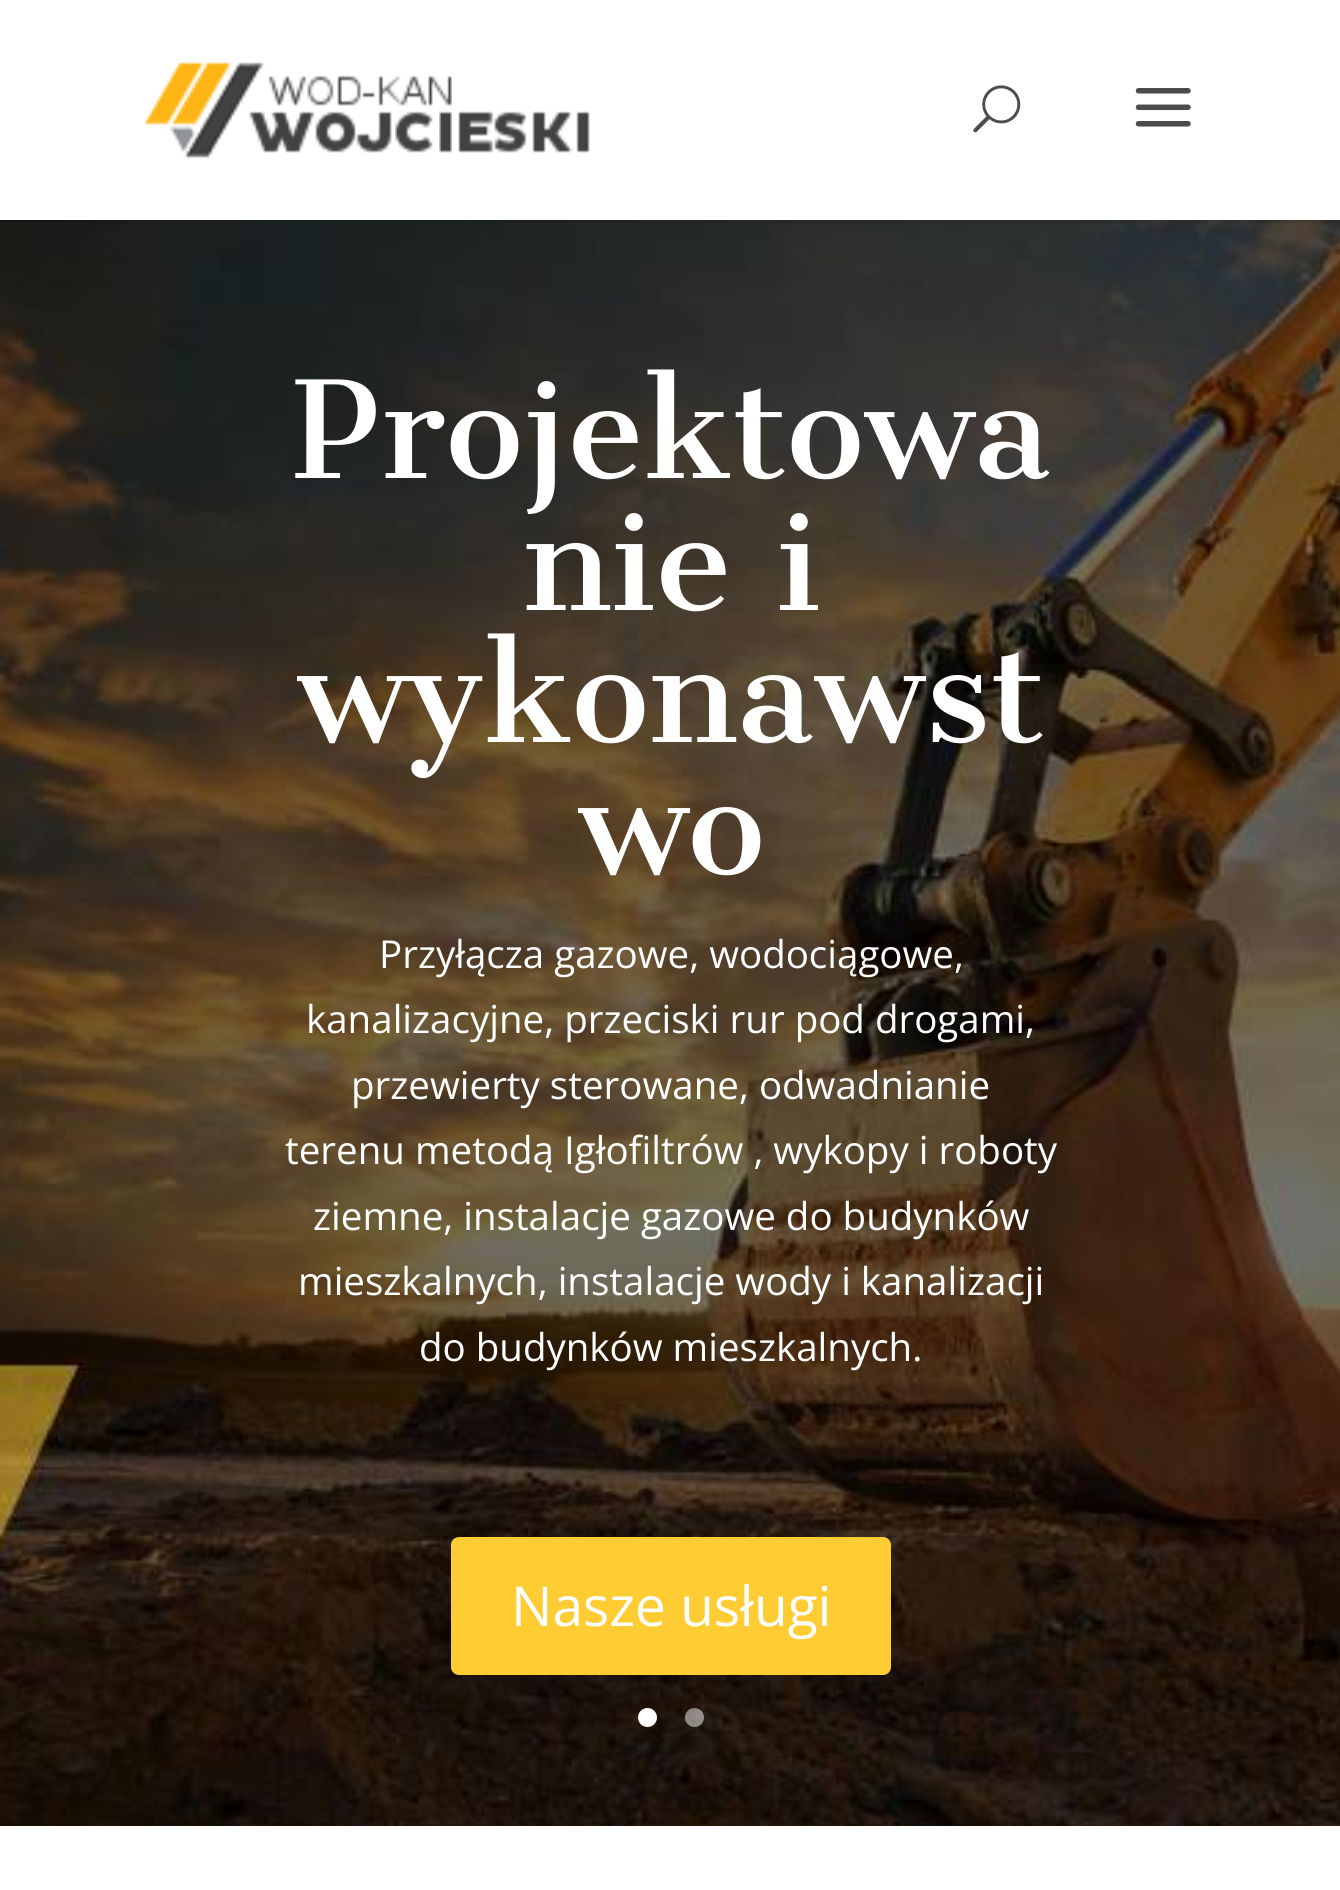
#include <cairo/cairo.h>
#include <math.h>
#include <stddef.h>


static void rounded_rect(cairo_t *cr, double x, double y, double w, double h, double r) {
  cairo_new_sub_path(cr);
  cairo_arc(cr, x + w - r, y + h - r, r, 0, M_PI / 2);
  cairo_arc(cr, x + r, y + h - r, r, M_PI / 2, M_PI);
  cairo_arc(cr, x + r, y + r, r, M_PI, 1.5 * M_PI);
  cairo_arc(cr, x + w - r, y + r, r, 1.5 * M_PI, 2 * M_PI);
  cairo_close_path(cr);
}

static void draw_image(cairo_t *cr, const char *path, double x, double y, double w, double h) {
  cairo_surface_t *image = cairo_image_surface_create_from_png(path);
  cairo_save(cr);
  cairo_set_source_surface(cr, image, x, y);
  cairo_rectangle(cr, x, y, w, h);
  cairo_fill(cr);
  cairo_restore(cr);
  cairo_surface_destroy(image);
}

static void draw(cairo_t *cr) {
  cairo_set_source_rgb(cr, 1, 1, 1);
  cairo_paint(cr);
  draw_image(cr, "images/4.png", 0, 220, 1340, 1606);
  cairo_set_source_rgba(cr, 0, 0, 0, 0.1);
  cairo_rectangle(cr, 0, 220, 1340, 3);
  cairo_fill(cr);
  draw_image(cr, "images/1.png", 145, 62, 445, 97);
  draw_image(cr, "images/2.png", 973, 85, 48, 48);
  draw_image(cr, "images/3.png", 1135, 88, 56, 39);
  cairo_set_source_rgb(cr, 1, 204 / 255.0, 51 / 255.0);
  rounded_rect(cr, 451, 1537, 440, 138, 8);
  cairo_fill(cr);
  cairo_set_source_rgb(cr, 1, 1, 1);
  cairo_arc(cr, 647.5, 1717.5, 9.5, 0, 2 * M_PI);
  cairo_fill(cr);
  cairo_set_source_rgba(cr, 1, 1, 1, 0.5);
  cairo_arc(cr, 694.5, 1717.5, 9.5, 0, 2 * M_PI);
  cairo_fill(cr);
  cairo_select_font_face(cr, "Cantata One", CAIRO_FONT_SLANT_NORMAL, CAIRO_FONT_WEIGHT_NORMAL);
  cairo_set_font_size(cr, 132);
  cairo_set_source_rgb(cr, 1, 1, 1);
  cairo_move_to(cr, 292, 478);
  cairo_show_text(cr, "Projektowa");
  cairo_move_to(cr, 523, 610);
  cairo_show_text(cr, "nie i");
  cairo_move_to(cr, 297, 742);
  cairo_show_text(cr, "wykonawst");
  cairo_move_to(cr, 578, 874);
  cairo_show_text(cr, "wo");
  cairo_select_font_face(cr, "Open Sans", CAIRO_FONT_SLANT_NORMAL, CAIRO_FONT_WEIGHT_NORMAL);
  cairo_set_font_size(cr, 38.5);
  cairo_move_to(cr, 379, 968);
  cairo_show_text(cr, "Przyłącza gazowe, wodociągowe,");
  cairo_move_to(cr, 306, 1033);
  cairo_show_text(cr, "kanalizacyjne, przeciski rur pod drogami,");
  cairo_move_to(cr, 351, 1099);
  cairo_show_text(cr, "przewierty sterowane, odwadnianie");
  cairo_move_to(cr, 285, 1164);
  cairo_show_text(cr, "terenu metodą Igłofiltrów , wykopy i roboty");
  cairo_move_to(cr, 313, 1230);
  cairo_show_text(cr, "ziemne, instalacje gazowe do budynków");
  cairo_move_to(cr, 298, 1295);
  cairo_show_text(cr, "mieszkalnych, instalacje wody i kanalizacji");
  cairo_move_to(cr, 419, 1361);
  cairo_show_text(cr, "do budynków mieszkalnych.");
  cairo_set_font_size(cr, 55);
  cairo_move_to(cr, 511, 1626);
  cairo_show_text(cr, "Nasze usługi");
}

int main(void) {
  cairo_surface_t *surface = cairo_image_surface_create(CAIRO_FORMAT_RGB24, 1340, 1890);
  cairo_t *cr = cairo_create(surface);
  cairo_font_options_t *options = cairo_font_options_create();
  cairo_font_options_set_hint_metrics(options, CAIRO_HINT_METRICS_OFF);
  cairo_font_options_set_hint_style(options, CAIRO_HINT_STYLE_NONE);
  cairo_set_font_options(cr, options);
  cairo_set_miter_limit(cr, 4);
  draw(cr);
  cairo_surface_write_to_png(surface, "out.png");
  cairo_font_options_destroy(options);
  cairo_destroy(cr);
  cairo_surface_destroy(surface);
  return 0;
}
